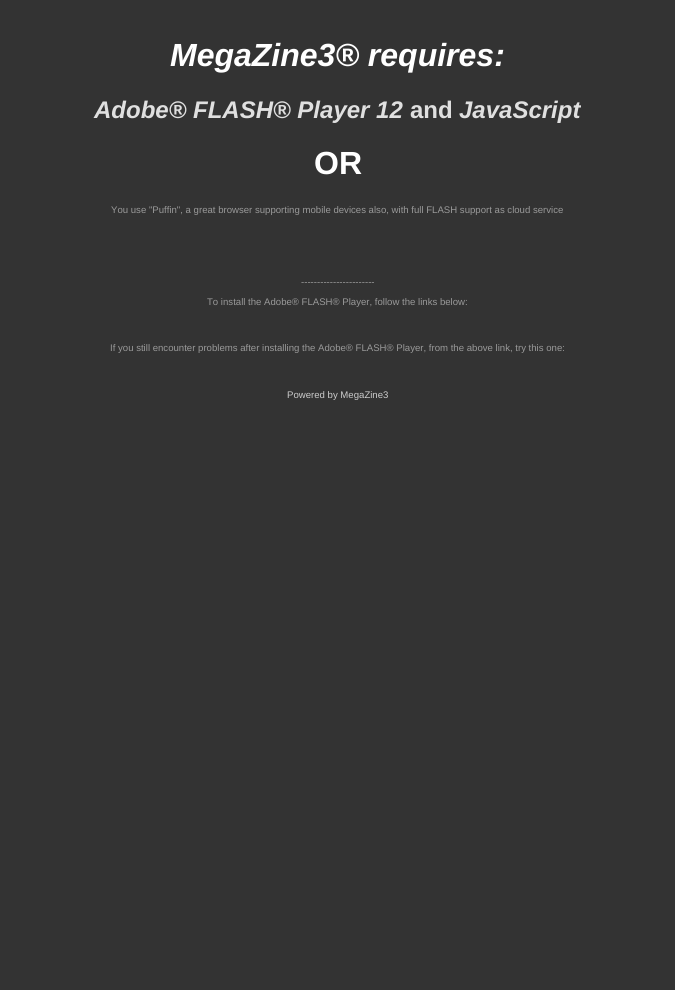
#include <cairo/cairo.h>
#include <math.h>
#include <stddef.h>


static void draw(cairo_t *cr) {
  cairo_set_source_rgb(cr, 51 / 255.0, 51 / 255.0, 51 / 255.0);
  cairo_paint(cr);
  cairo_select_font_face(cr, "Liberation Sans", CAIRO_FONT_SLANT_ITALIC, CAIRO_FONT_WEIGHT_BOLD);
  cairo_set_font_size(cr, 32);
  cairo_set_source_rgb(cr, 1, 1, 1);
  cairo_move_to(cr, 170, 66);
  cairo_show_text(cr, "MegaZine3® requires:");
  cairo_set_font_size(cr, 24);
  cairo_set_source_rgb(cr, 224 / 255.0, 224 / 255.0, 224 / 255.0);
  cairo_move_to(cr, 94, 118);
  cairo_show_text(cr, "Adobe® FLASH® Player 12");
  cairo_select_font_face(cr, "Liberation Sans", CAIRO_FONT_SLANT_NORMAL, CAIRO_FONT_WEIGHT_BOLD);
  cairo_move_to(cr, 410, 118);
  cairo_show_text(cr, "and");
  cairo_select_font_face(cr, "Liberation Sans", CAIRO_FONT_SLANT_ITALIC, CAIRO_FONT_WEIGHT_BOLD);
  cairo_move_to(cr, 459, 118);
  cairo_show_text(cr, "JavaScript");
  cairo_select_font_face(cr, "Liberation Sans", CAIRO_FONT_SLANT_NORMAL, CAIRO_FONT_WEIGHT_BOLD);
  cairo_set_font_size(cr, 32);
  cairo_set_source_rgb(cr, 1, 1, 1);
  cairo_move_to(cr, 314, 174);
  cairo_show_text(cr, "OR");
  cairo_select_font_face(cr, "Liberation Sans", CAIRO_FONT_SLANT_NORMAL, CAIRO_FONT_WEIGHT_NORMAL);
  cairo_set_font_size(cr, 9.6);
  cairo_set_source_rgb(cr, 153 / 255.0, 153 / 255.0, 153 / 255.0);
  cairo_move_to(cr, 111, 213);
  cairo_show_text(cr, "You use \"Puffin\", a great browser supporting mobile devices also, with full FLASH support as cloud service");
  cairo_move_to(cr, 301, 285);
  cairo_show_text(cr, "-----------------------");
  cairo_move_to(cr, 207, 305);
  cairo_show_text(cr, "To install the Adobe® FLASH® Player, follow the links below:");
  cairo_move_to(cr, 110, 351);
  cairo_show_text(cr, "If you still encounter problems after installing the Adobe® FLASH® Player, from the above link, try this one:");
  cairo_set_source_rgb(cr, 204 / 255.0, 204 / 255.0, 204 / 255.0);
  cairo_move_to(cr, 287, 398);
  cairo_show_text(cr, "Powered by MegaZine3");
}

int main(void) {
  cairo_surface_t *surface = cairo_image_surface_create(CAIRO_FORMAT_RGB24, 675, 990);
  cairo_t *cr = cairo_create(surface);
  cairo_font_options_t *options = cairo_font_options_create();
  cairo_font_options_set_hint_metrics(options, CAIRO_HINT_METRICS_OFF);
  cairo_font_options_set_hint_style(options, CAIRO_HINT_STYLE_NONE);
  cairo_set_font_options(cr, options);
  cairo_set_miter_limit(cr, 4);
  draw(cr);
  cairo_surface_write_to_png(surface, "out.png");
  cairo_font_options_destroy(options);
  cairo_destroy(cr);
  cairo_surface_destroy(surface);
  return 0;
}
